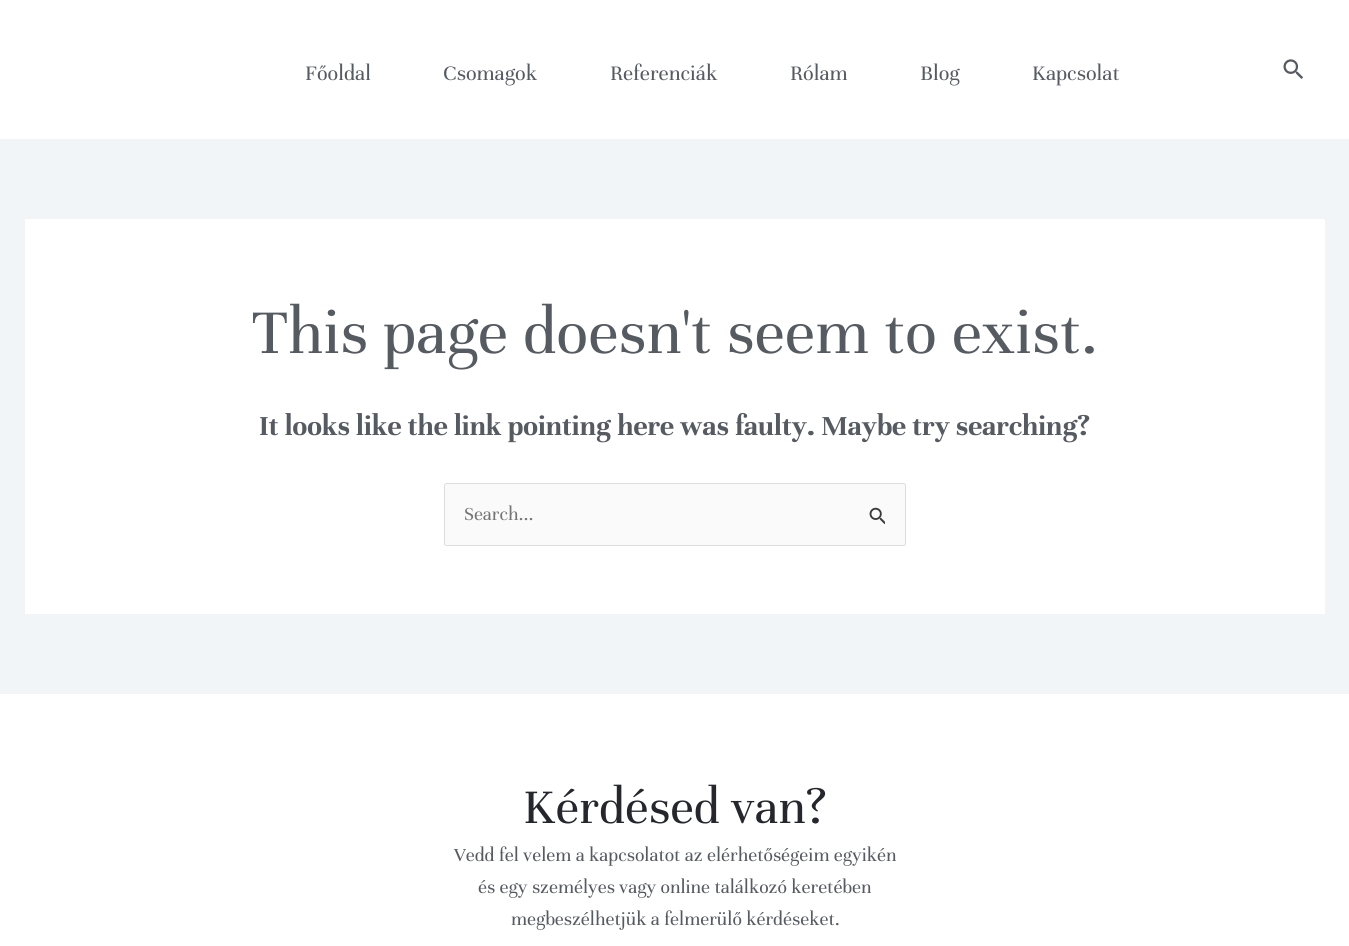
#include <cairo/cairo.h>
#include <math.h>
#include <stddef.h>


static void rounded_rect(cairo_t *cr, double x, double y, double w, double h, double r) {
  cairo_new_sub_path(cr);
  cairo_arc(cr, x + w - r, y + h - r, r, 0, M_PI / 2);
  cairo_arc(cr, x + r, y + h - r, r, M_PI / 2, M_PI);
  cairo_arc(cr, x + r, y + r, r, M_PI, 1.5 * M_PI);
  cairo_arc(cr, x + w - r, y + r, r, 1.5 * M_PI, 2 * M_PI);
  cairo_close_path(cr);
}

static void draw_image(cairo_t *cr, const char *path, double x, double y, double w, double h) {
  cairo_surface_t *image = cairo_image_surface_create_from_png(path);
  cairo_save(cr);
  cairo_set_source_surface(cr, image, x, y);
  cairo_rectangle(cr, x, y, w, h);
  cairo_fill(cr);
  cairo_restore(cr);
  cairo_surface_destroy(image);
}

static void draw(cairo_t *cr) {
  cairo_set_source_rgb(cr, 242 / 255.0, 245 / 255.0, 247 / 255.0);
  cairo_paint(cr);
  cairo_set_source_rgb(cr, 1, 1, 1);
  cairo_rectangle(cr, 0, 0, 1349, 139);
  cairo_fill(cr);
  draw_image(cr, "images/1.png", 1283, 59, 20, 20);
  cairo_rectangle(cr, 25, 219, 1300, 395);
  cairo_fill(cr);
  cairo_set_source_rgb(cr, 250 / 255.0, 250 / 255.0, 250 / 255.0);
  rounded_rect(cr, 444.5, 483.5, 461, 62, 2);
  cairo_fill_preserve(cr);
  cairo_set_source_rgb(cr, 221 / 255.0, 221 / 255.0, 221 / 255.0);
  cairo_set_line_width(cr, 1);
  cairo_stroke(cr);
  draw_image(cr, "images/2.png", 869, 507, 16, 18);
  cairo_set_source_rgb(cr, 1, 1, 1);
  cairo_rectangle(cr, 0, 694, 1349, 252);
  cairo_fill(cr);
  cairo_select_font_face(cr, "Unna", CAIRO_FONT_SLANT_NORMAL, CAIRO_FONT_WEIGHT_NORMAL);
  cairo_set_font_size(cr, 22.5);
  cairo_set_source_rgb(cr, 86 / 255.0, 90 / 255.0, 97 / 255.0);
  cairo_move_to(cr, 305, 80);
  cairo_show_text(cr, "Főoldal");
  cairo_move_to(cr, 443, 80);
  cairo_show_text(cr, "Csomagok");
  cairo_move_to(cr, 610, 80);
  cairo_show_text(cr, "Referenciák");
  cairo_move_to(cr, 790, 80);
  cairo_show_text(cr, "Rólam");
  cairo_move_to(cr, 920, 80);
  cairo_show_text(cr, "Blog");
  cairo_move_to(cr, 1032, 80);
  cairo_show_text(cr, "Kapcsolat");
  cairo_set_font_size(cr, 67.5);
  cairo_move_to(cr, 252, 353);
  cairo_show_text(cr, "This page doesn't seem to exist.");
  cairo_select_font_face(cr, "Unna", CAIRO_FONT_SLANT_NORMAL, CAIRO_FONT_WEIGHT_BOLD);
  cairo_set_font_size(cr, 30);
  cairo_move_to(cr, 259, 435);
  cairo_show_text(cr, "It looks like the link pointing here was faulty. Maybe try searching?");
  cairo_select_font_face(cr, "Unna", CAIRO_FONT_SLANT_NORMAL, CAIRO_FONT_WEIGHT_NORMAL);
  cairo_set_font_size(cr, 20);
  cairo_set_source_rgb(cr, 117 / 255.0, 117 / 255.0, 117 / 255.0);
  cairo_move_to(cr, 464, 520);
  cairo_show_text(cr, "Search...");
  cairo_set_font_size(cr, 52.5);
  cairo_set_source_rgb(cr, 37 / 255.0, 39 / 255.0, 45 / 255.0);
  cairo_move_to(cr, 523, 823);
  cairo_show_text(cr, "Kérdésed van?");
  cairo_set_font_size(cr, 20);
  cairo_set_source_rgb(cr, 86 / 255.0, 90 / 255.0, 97 / 255.0);
  cairo_move_to(cr, 454, 861);
  cairo_show_text(cr, "Vedd fel velem a kapcsolatot az elérhetőségeim egyikén");
  cairo_move_to(cr, 478, 893);
  cairo_show_text(cr, "és egy személyes vagy online találkozó keretében");
  cairo_move_to(cr, 511, 925);
  cairo_show_text(cr, "megbeszélhetjük a felmerülő kérdéseket.");
}

int main(void) {
  cairo_surface_t *surface = cairo_image_surface_create(CAIRO_FORMAT_RGB24, 1349, 946);
  cairo_t *cr = cairo_create(surface);
  cairo_font_options_t *options = cairo_font_options_create();
  cairo_font_options_set_hint_metrics(options, CAIRO_HINT_METRICS_OFF);
  cairo_font_options_set_hint_style(options, CAIRO_HINT_STYLE_NONE);
  cairo_set_font_options(cr, options);
  cairo_set_miter_limit(cr, 4);
  draw(cr);
  cairo_surface_write_to_png(surface, "out.png");
  cairo_font_options_destroy(options);
  cairo_destroy(cr);
  cairo_surface_destroy(surface);
  return 0;
}
